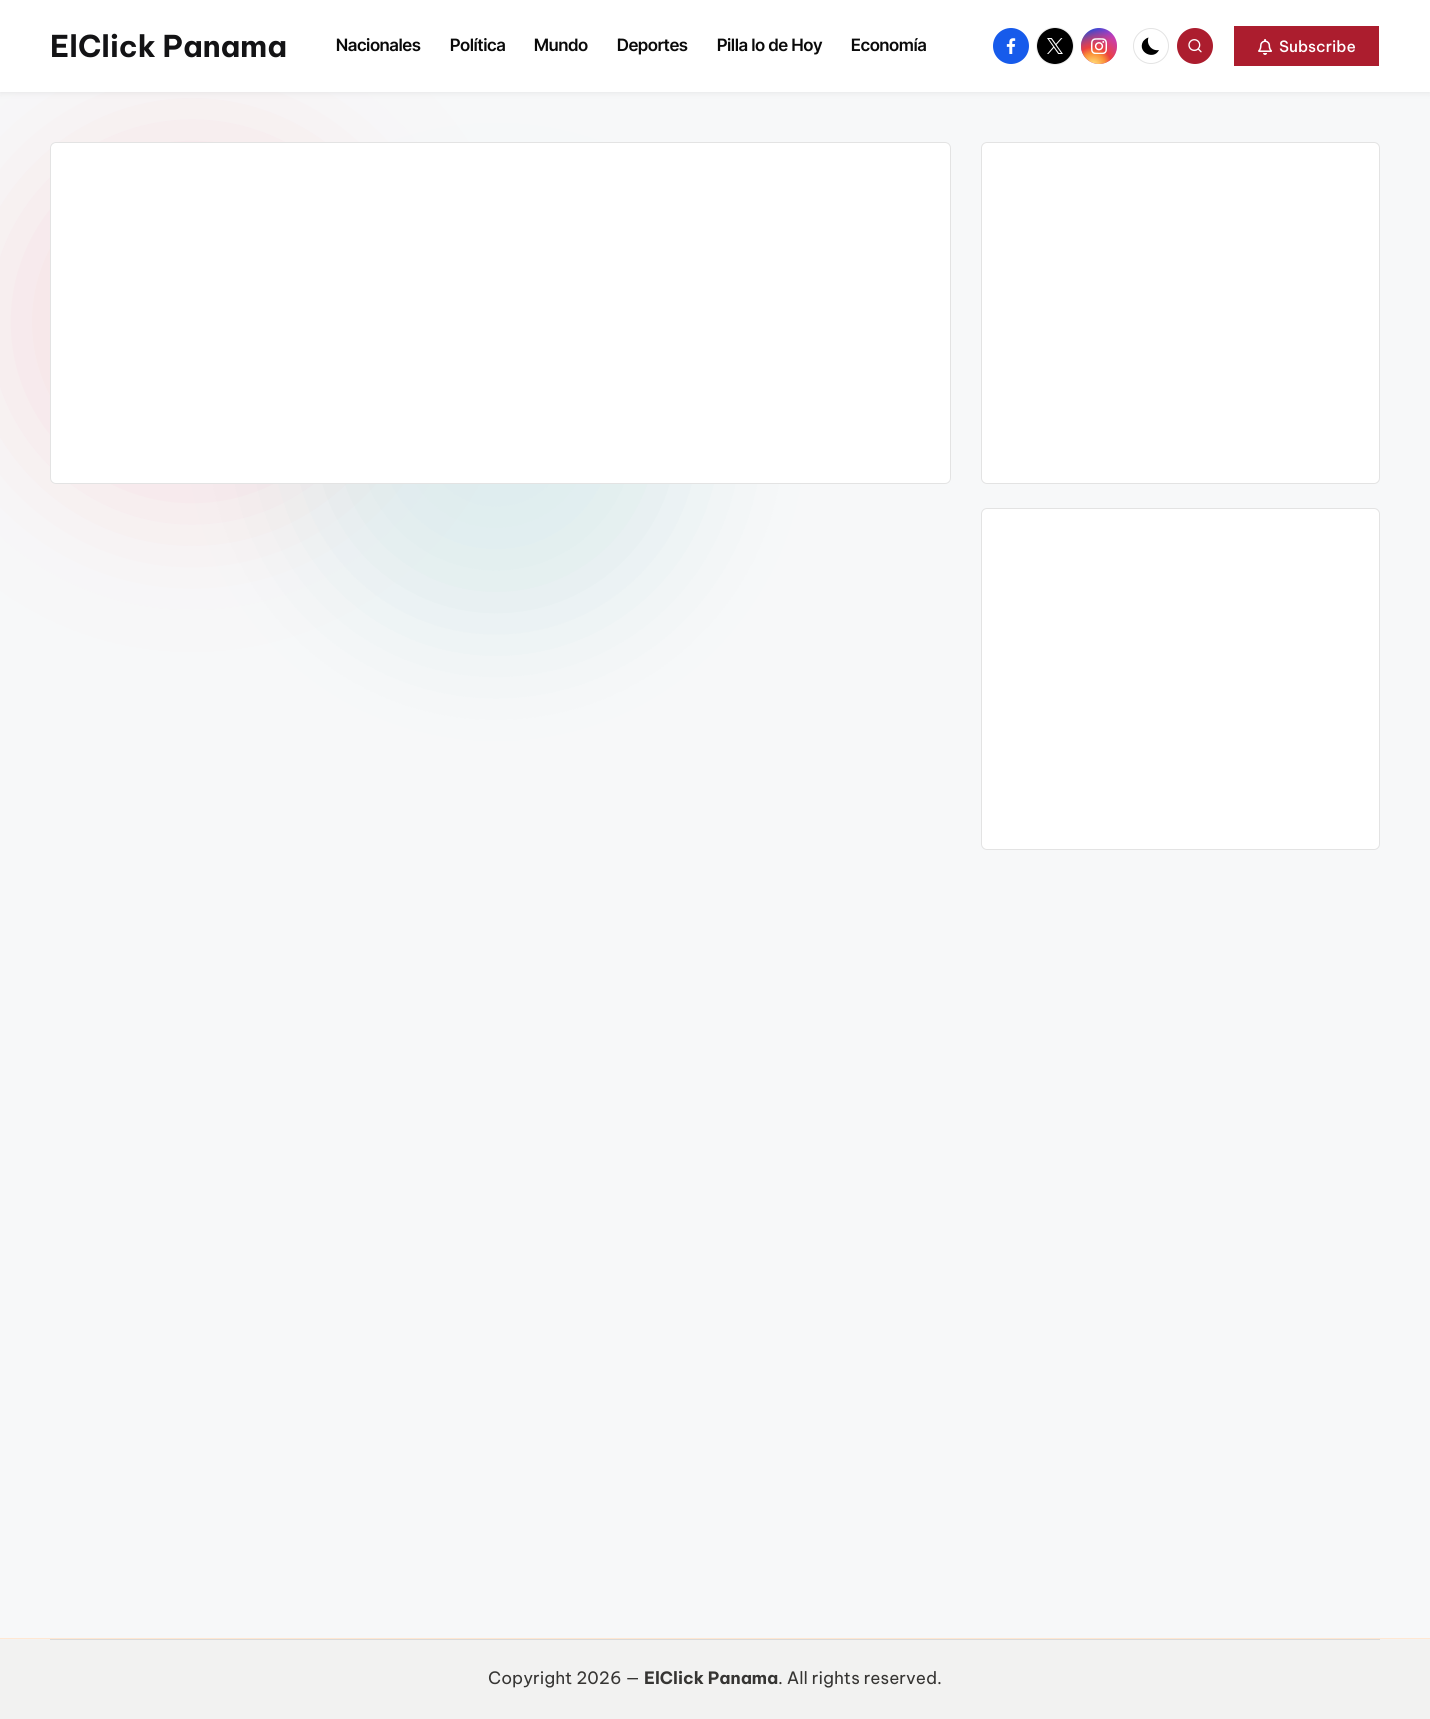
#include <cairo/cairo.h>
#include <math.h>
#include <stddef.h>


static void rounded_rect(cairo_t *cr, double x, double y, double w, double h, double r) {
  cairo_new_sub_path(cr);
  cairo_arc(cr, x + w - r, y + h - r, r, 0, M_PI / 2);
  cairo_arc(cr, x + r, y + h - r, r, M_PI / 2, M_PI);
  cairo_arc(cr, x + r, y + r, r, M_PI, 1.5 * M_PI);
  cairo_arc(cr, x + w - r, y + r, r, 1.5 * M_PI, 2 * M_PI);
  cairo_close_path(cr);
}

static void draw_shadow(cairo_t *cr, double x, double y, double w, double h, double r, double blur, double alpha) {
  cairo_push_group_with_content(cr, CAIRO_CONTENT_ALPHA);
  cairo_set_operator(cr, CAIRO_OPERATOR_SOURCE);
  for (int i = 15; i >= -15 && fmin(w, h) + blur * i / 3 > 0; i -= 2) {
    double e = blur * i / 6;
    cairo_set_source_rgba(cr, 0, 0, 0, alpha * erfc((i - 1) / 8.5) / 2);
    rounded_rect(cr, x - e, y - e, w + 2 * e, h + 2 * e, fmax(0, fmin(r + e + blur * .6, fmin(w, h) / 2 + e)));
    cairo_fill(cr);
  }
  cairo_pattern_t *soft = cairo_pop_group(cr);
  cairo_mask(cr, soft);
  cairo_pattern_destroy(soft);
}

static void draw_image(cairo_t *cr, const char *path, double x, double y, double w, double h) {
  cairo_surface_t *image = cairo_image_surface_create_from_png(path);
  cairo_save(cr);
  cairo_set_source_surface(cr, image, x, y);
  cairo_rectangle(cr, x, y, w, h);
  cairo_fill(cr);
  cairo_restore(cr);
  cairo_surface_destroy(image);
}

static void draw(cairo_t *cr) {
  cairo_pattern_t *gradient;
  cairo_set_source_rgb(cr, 247 / 255.0, 248 / 255.0, 249 / 255.0);
  cairo_paint(cr);
  cairo_set_source_rgb(cr, 247 / 255.0, 227 / 255.0, 229 / 255.0);
  draw_shadow(cr, 0, 130, 384, 384, 192, 64, 1);
  cairo_set_source_rgb(cr, 4 / 255.0, 134 / 255.0, 139 / 255.0);
  draw_shadow(cr, 304, 240, 384, 384, 192, 64, 0.1);
  cairo_set_source_rgb(cr, 1, 1, 1);
  rounded_rect(cr, 50, 142, 901, 342, 6);
  cairo_fill(cr);
  rounded_rect(cr, 50.5, 142.5, 900, 341, 5.5);
  cairo_set_source_rgba(cr, 185 / 255.0, 185 / 255.0, 185 / 255.0, 0.4);
  cairo_set_line_width(cr, 1);
  cairo_stroke(cr);
  cairo_set_source_rgb(cr, 1, 1, 1);
  rounded_rect(cr, 981.5, 142.5, 398, 341, 5.5);
  cairo_fill_preserve(cr);
  cairo_set_source_rgb(cr, 227 / 255.0, 227 / 255.0, 227 / 255.0);
  cairo_stroke(cr);
  cairo_set_source_rgb(cr, 1, 1, 1);
  rounded_rect(cr, 981.5, 508.5, 398, 341, 5.5);
  cairo_fill_preserve(cr);
  cairo_set_source_rgb(cr, 227 / 255.0, 227 / 255.0, 227 / 255.0);
  cairo_stroke(cr);
  cairo_set_source_rgb(cr, 190 / 255.0, 190 / 255.0, 190 / 255.0);
  draw_shadow(cr, 0, 1, 1430, 92, 0, 3, 0.3);
  cairo_set_source_rgb(cr, 1, 1, 1);
  cairo_rectangle(cr, 0, 0, 1430, 92);
  cairo_fill(cr);
  cairo_set_source_rgb(cr, 23 / 255.0, 91 / 255.0, 235 / 255.0);
  cairo_arc(cr, 1011, 46, 18, 0, 2 * M_PI);
  cairo_fill(cr);
  draw_image(cr, "images/1.png", 1006, 38, 10, 16);
  cairo_set_source_rgb(cr, 0, 0, 0);
  cairo_arc(cr, 1055, 46, 18, 0, 2 * M_PI);
  cairo_fill(cr);
  cairo_arc(cr, 1055, 46, 18.5, 0, 2 * M_PI);
  cairo_set_source_rgba(cr, 190 / 255.0, 190 / 255.0, 190 / 255.0, 0.3);
  cairo_stroke(cr);
  draw_image(cr, "images/2.png", 1047, 38, 16, 16);
  gradient = cairo_pattern_create_linear(1081, 28, 1117, 64);
  cairo_pattern_add_color_stop_rgba(gradient, 0.12, 35 / 255.0, 75 / 255.0, 215 / 255.0, 1);
  cairo_pattern_add_color_stop_rgba(gradient, 0.58, 195 / 255.0, 60 / 255.0, 190 / 255.0, 1);
  cairo_set_source(cr, gradient);
  cairo_pattern_destroy(gradient);
  cairo_arc(cr, 1099, 46, 18, 0, 2 * M_PI);
  cairo_fill(cr);
  gradient = cairo_pattern_create_radial(1093, 66, 0, 1093, 66, 45);
  cairo_pattern_add_color_stop_rgba(gradient, 0, 1, 225 / 255.0, 125 / 255.0, 1);
  cairo_pattern_add_color_stop_rgba(gradient, 0.1, 1, 205 / 255.0, 105 / 255.0, 1);
  cairo_pattern_add_color_stop_rgba(gradient, 0.28, 250 / 255.0, 145 / 255.0, 55 / 255.0, 1);
  cairo_pattern_add_color_stop_rgba(gradient, 0.42, 235 / 255.0, 65 / 255.0, 65 / 255.0, 1);
  cairo_pattern_add_color_stop_rgba(gradient, 0.82, 235 / 255.0, 65 / 255.0, 65 / 255.0, 0);
  cairo_set_source(cr, gradient);
  cairo_pattern_destroy(gradient);
  cairo_arc(cr, 1099, 46, 18, 0, 2 * M_PI);
  cairo_fill(cr);
  draw_image(cr, "images/3.png", 1091, 38, 16, 16);
  cairo_arc(cr, 1151, 46, 17.5, 0, 2 * M_PI);
  cairo_set_source_rgb(cr, 227 / 255.0, 227 / 255.0, 227 / 255.0);
  cairo_stroke(cr);
  cairo_set_source_rgb(cr, 0, 0, 0);
  cairo_new_path(cr);
  cairo_move_to(cr, 1159, 50);
  cairo_curve_to(cr, 1152, 51.5, 1146, 44.5, 1148.5, 37.5);
  cairo_curve_to(cr, 1146.5, 38, 1144.5, 39.5, 1143, 41.5);
  cairo_curve_to(cr, 1137, 52.5, 1154, 60.5, 1159, 50);
  cairo_close_path(cr);
  cairo_fill(cr);
  cairo_set_source_rgb(cr, 172 / 255.0, 29 / 255.0, 46 / 255.0);
  cairo_arc(cr, 1195, 46, 18, 0, 2 * M_PI);
  cairo_fill(cr);
  draw_image(cr, "images/4.png", 1188, 39, 14, 14);
  cairo_rectangle(cr, 1234, 26, 145, 40);
  cairo_fill(cr);
  draw_image(cr, "images/5.png", 1258, 39, 14, 16);
  cairo_set_source_rgb(cr, 242 / 255.0, 242 / 255.0, 241 / 255.0);
  cairo_rectangle(cr, 0, 1639, 1430, 80);
  cairo_fill(cr);
  cairo_set_source_rgb(cr, 1, 231 / 255.0, 210 / 255.0);
  cairo_rectangle(cr, 0, 1638, 1430, 1);
  cairo_fill(cr);
  cairo_set_source_rgb(cr, 218 / 255.0, 218 / 255.0, 217 / 255.0);
  cairo_rectangle(cr, 50, 1639, 1330, 1);
  cairo_fill(cr);
  cairo_select_font_face(cr, "Be Vietnam Pro", CAIRO_FONT_SLANT_NORMAL, CAIRO_FONT_WEIGHT_BOLD);
  cairo_set_font_size(cr, 30);
  cairo_set_source_rgb(cr, 19 / 255.0, 19 / 255.0, 21 / 255.0);
  cairo_move_to(cr, 50, 57);
  cairo_show_text(cr, "ElClick Panama");
  cairo_select_font_face(cr, "Inter Tight SemiBold", CAIRO_FONT_SLANT_NORMAL, CAIRO_FONT_WEIGHT_NORMAL);
  cairo_set_font_size(cr, 17);
  cairo_set_source_rgb(cr, 10 / 255.0, 10 / 255.0, 10 / 255.0);
  cairo_move_to(cr, 336, 51);
  cairo_show_text(cr, "Nacionales");
  cairo_move_to(cr, 450, 51);
  cairo_show_text(cr, "Política");
  cairo_move_to(cr, 534, 51);
  cairo_show_text(cr, "Mundo");
  cairo_move_to(cr, 617, 51);
  cairo_show_text(cr, "Deportes");
  cairo_move_to(cr, 717, 51);
  cairo_show_text(cr, "Pilla lo de Hoy");
  cairo_move_to(cr, 851, 51);
  cairo_show_text(cr, "Economía");
  cairo_select_font_face(cr, "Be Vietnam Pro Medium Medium", CAIRO_FONT_SLANT_NORMAL, CAIRO_FONT_WEIGHT_NORMAL);
  cairo_set_font_size(cr, 15.5);
  cairo_set_source_rgb(cr, 1, 1, 1);
  cairo_move_to(cr, 1279, 52);
  cairo_show_text(cr, "Subscribe");
  cairo_select_font_face(cr, "Be Vietnam Pro", CAIRO_FONT_SLANT_NORMAL, CAIRO_FONT_WEIGHT_NORMAL);
  cairo_set_font_size(cr, 17);
  cairo_set_source_rgb(cr, 54 / 255.0, 53 / 255.0, 51 / 255.0);
  cairo_move_to(cr, 488, 1684);
  cairo_show_text(cr, "Copyright 2026 —");
  cairo_select_font_face(cr, "Be Vietnam Pro", CAIRO_FONT_SLANT_NORMAL, CAIRO_FONT_WEIGHT_BOLD);
  cairo_move_to(cr, 644, 1684);
  cairo_show_text(cr, "ElClick Panama");
  cairo_select_font_face(cr, "Be Vietnam Pro", CAIRO_FONT_SLANT_NORMAL, CAIRO_FONT_WEIGHT_NORMAL);
  cairo_move_to(cr, 778, 1684);
  cairo_show_text(cr, ". All rights reserved.");
}

int main(void) {
  cairo_surface_t *surface = cairo_image_surface_create(CAIRO_FORMAT_RGB24, 1430, 1719);
  cairo_t *cr = cairo_create(surface);
  cairo_font_options_t *options = cairo_font_options_create();
  cairo_font_options_set_hint_metrics(options, CAIRO_HINT_METRICS_OFF);
  cairo_font_options_set_hint_style(options, CAIRO_HINT_STYLE_NONE);
  cairo_set_font_options(cr, options);
  cairo_set_miter_limit(cr, 4);
  draw(cr);
  cairo_surface_write_to_png(surface, "out.png");
  cairo_font_options_destroy(options);
  cairo_destroy(cr);
  cairo_surface_destroy(surface);
  return 0;
}
